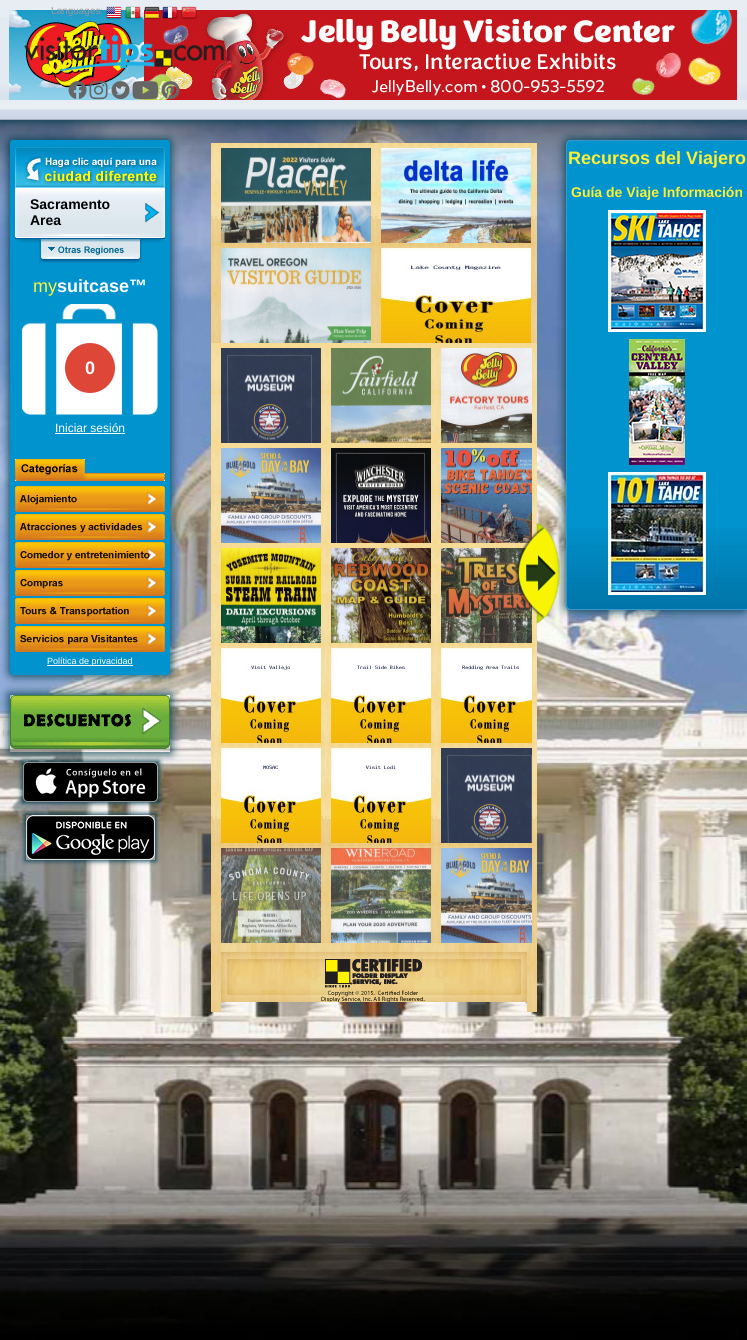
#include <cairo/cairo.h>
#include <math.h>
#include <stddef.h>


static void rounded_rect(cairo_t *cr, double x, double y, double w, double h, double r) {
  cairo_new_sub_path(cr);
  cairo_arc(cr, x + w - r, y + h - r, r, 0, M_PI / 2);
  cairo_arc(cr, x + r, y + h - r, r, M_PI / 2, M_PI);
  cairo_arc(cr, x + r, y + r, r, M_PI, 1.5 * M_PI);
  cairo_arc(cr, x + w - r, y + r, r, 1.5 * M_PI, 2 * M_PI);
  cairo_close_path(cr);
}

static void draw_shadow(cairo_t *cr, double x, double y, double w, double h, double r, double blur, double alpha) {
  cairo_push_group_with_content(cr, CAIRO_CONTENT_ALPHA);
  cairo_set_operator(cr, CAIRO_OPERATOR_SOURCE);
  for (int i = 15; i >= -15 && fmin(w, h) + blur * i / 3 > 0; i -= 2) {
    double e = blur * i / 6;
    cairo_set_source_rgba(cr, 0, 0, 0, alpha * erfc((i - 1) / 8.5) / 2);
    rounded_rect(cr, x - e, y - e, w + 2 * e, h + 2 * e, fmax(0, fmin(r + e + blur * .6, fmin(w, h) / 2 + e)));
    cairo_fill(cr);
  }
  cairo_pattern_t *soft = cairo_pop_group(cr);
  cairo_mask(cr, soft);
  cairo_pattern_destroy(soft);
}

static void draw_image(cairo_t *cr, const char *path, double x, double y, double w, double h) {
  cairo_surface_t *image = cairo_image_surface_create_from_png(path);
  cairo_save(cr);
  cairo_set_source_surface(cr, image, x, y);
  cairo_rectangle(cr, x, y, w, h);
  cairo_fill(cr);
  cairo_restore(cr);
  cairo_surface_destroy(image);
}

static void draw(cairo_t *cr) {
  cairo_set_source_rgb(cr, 1, 1, 1);
  cairo_paint(cr);
  draw_image(cr, "images/14.png", 0, 120, 747, 1220);
  cairo_set_source_rgb(cr, 0, 60 / 255.0, 80 / 255.0);
  draw_shadow(cr, -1, -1, 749, 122, 0, 5, 1);
  cairo_set_source_rgb(cr, 232 / 255.0, 237 / 255.0, 243 / 255.0);
  cairo_rectangle(cr, 0, 0, 747, 17);
  cairo_fill(cr);
  draw_image(cr, "images/1.png", 0, 17, 747, 103);
  draw_image(cr, "images/7.png", 9, 10, 728, 90);
  draw_image(cr, "images/2.png", 106, 6, 16, 14);
  draw_image(cr, "images/3.png", 125, 6, 16, 14);
  draw_image(cr, "images/4.png", 144, 6, 16, 14);
  draw_image(cr, "images/5.png", 162, 6, 16, 14);
  draw_image(cr, "images/6.png", 181, 6, 16, 14);
  draw_image(cr, "images/8.png", 24, 35, 200, 36);
  draw_image(cr, "images/9.png", 68, 81, 19, 18);
  draw_image(cr, "images/10.png", 89, 81, 19, 19);
  draw_image(cr, "images/11.png", 111, 81, 19, 19);
  draw_image(cr, "images/12.png", 132, 81, 27, 19);
  draw_image(cr, "images/13.png", 161, 81, 19, 19);
  draw_image(cr, "images/15.png", 211, 143, 326, 200);
  draw_image(cr, "images/16.png", 221, 148, 150, 95);
  draw_image(cr, "images/17.png", 381, 148, 150, 95);
  draw_image(cr, "images/18.png", 221, 248, 150, 95);
  draw_image(cr, "images/19.png", 381, 248, 150, 95);
  draw_image(cr, "images/20.png", 211, 343, 326, 600);
  draw_image(cr, "images/21.png", 221, 348, 100, 95);
  draw_image(cr, "images/22.png", 331, 348, 100, 95);
  draw_image(cr, "images/23.png", 441, 348, 91, 95);
  draw_image(cr, "images/24.png", 221, 448, 100, 95);
  draw_image(cr, "images/25.png", 331, 448, 100, 95);
  draw_image(cr, "images/26.png", 441, 448, 91, 95);
  draw_image(cr, "images/27.png", 221, 548, 100, 95);
  draw_image(cr, "images/28.png", 331, 548, 100, 95);
  draw_image(cr, "images/29.png", 441, 548, 91, 95);
  draw_image(cr, "images/30.png", 221, 648, 100, 95);
  draw_image(cr, "images/31.png", 331, 648, 100, 95);
  draw_image(cr, "images/32.png", 441, 648, 91, 95);
  draw_image(cr, "images/33.png", 221, 748, 100, 95);
  draw_image(cr, "images/34.png", 331, 748, 100, 95);
  draw_image(cr, "images/35.png", 441, 748, 91, 95);
  draw_image(cr, "images/36.png", 221, 848, 100, 95);
  draw_image(cr, "images/37.png", 331, 848, 100, 95);
  draw_image(cr, "images/38.png", 441, 848, 91, 95);
  draw_image(cr, "images/39.png", 211, 943, 10, 69);
  draw_image(cr, "images/39.png", 527, 943, 10, 69);
  draw_image(cr, "images/40.png", 221, 943, 306, 59);
  draw_image(cr, "images/41.png", 221, 952, 16, 50);
  draw_image(cr, "images/42.png", 511, 952, 16, 50);
  draw_image(cr, "images/43.png", 321, 959, 104, 43);
  draw_image(cr, "images/44.png", 515, 522, 45, 102);
  cairo_set_source_rgb(cr, 0, 60 / 255.0, 80 / 255.0);
  draw_shadow(cr, 565, 139, 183, 472, 6, 5, 1);
  cairo_set_source_rgb(cr, 1 / 255.0, 147 / 255.0, 206 / 255.0);
  cairo_new_path(cr);
  cairo_move_to(cr, 571, 140);
  cairo_line_to(cr, 747, 140);
  cairo_line_to(cr, 747, 610);
  cairo_line_to(cr, 571, 610);
  cairo_curve_to(cr, 568, 610, 566, 608, 566, 605);
  cairo_line_to(cr, 566, 145);
  cairo_curve_to(cr, 566, 142, 568, 140, 571, 140);
  cairo_close_path(cr);
  cairo_fill(cr);
  draw_image(cr, "images/45.png", 566, 528, 181, 81);
  cairo_set_source_rgb(cr, 51 / 255.0, 153 / 255.0, 204 / 255.0);
  cairo_set_fill_rule(cr, CAIRO_FILL_RULE_EVEN_ODD);
  cairo_new_path(cr);
  cairo_move_to(cr, 571, 140);
  cairo_line_to(cr, 747, 140);
  cairo_line_to(cr, 747, 610);
  cairo_line_to(cr, 571, 610);
  cairo_curve_to(cr, 568, 610, 566, 608, 566, 605);
  cairo_line_to(cr, 566, 145);
  cairo_curve_to(cr, 566, 142, 568, 140, 571, 140);
  cairo_close_path(cr);
  cairo_move_to(cr, 571, 141);
  cairo_line_to(cr, 747, 141);
  cairo_line_to(cr, 747, 609);
  cairo_line_to(cr, 571, 609);
  cairo_curve_to(cr, 569, 609, 567, 607, 567, 605);
  cairo_line_to(cr, 567, 145);
  cairo_curve_to(cr, 567, 143, 569, 141, 571, 141);
  cairo_close_path(cr);
  cairo_fill(cr);
  draw_image(cr, "images/46.png", 608, 210, 98, 122);
  draw_image(cr, "images/47.png", 629, 339, 56, 126);
  draw_image(cr, "images/48.png", 608, 472, 98, 123);
  cairo_set_source_rgb(cr, 0, 60 / 255.0, 80 / 255.0);
  draw_shadow(cr, 9, 139, 162, 537, 4, 5, 1);
  cairo_set_source_rgb(cr, 1 / 255.0, 147 / 255.0, 206 / 255.0);
  rounded_rect(cr, 11, 141, 158, 533, 2);
  cairo_fill_preserve(cr);
  cairo_stroke(cr);
  draw_image(cr, "images/49.png", 15, 233, 150, 5);
  draw_image(cr, "images/50.png", 15, 147, 150, 86);
  draw_image(cr, "images/51.png", 145, 202, 15, 21);
  draw_image(cr, "images/52.png", 17, 239, 148, 4);
  cairo_set_source_rgb(cr, 0, 94 / 255.0, 151 / 255.0);
  cairo_rectangle(cr, 15, 238, 150, 1);
  cairo_fill(cr);
  draw_image(cr, "images/53.png", 39, 239, 103, 24);
  draw_image(cr, "images/54.png", 22, 304, 136, 111);
  cairo_set_source_rgb(cr, 222 / 255.0, 71 / 255.0, 56 / 255.0);
  cairo_arc(cr, 90, 368, 25, 0, 2 * M_PI);
  cairo_fill(cr);
  cairo_set_source_rgb(cr, 1, 1, 1);
  cairo_rectangle(cr, 55, 433, 70, 1);
  cairo_fill(cr);
  draw_image(cr, "images/55.png", 15, 459, 150, 22);
  draw_image(cr, "images/56.png", 15, 486, 150, 26);
  draw_image(cr, "images/57.png", 20, 495, 57, 10);
  draw_image(cr, "images/56.png", 15, 514, 150, 26);
  draw_image(cr, "images/58.png", 20, 523, 123, 10);
  draw_image(cr, "images/56.png", 15, 542, 150, 26);
  draw_image(cr, "images/59.png", 20, 551, 130, 10);
  draw_image(cr, "images/56.png", 15, 570, 150, 26);
  draw_image(cr, "images/60.png", 20, 579, 43, 10);
  draw_image(cr, "images/56.png", 15, 598, 150, 26);
  draw_image(cr, "images/61.png", 20, 607, 109, 10);
  draw_image(cr, "images/56.png", 15, 626, 150, 26);
  draw_image(cr, "images/62.png", 20, 635, 118, 10);
  cairo_rectangle(cr, 47, 665, 86, 1);
  cairo_fill(cr);
  cairo_save(cr);
  cairo_new_path(cr);
  cairo_move_to(cr, 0, 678);
  cairo_line_to(cr, 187, 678);
  cairo_line_to(cr, 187, 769);
  cairo_line_to(cr, 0, 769);
  cairo_close_path(cr);
  cairo_move_to(cr, 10, 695);
  cairo_line_to(cr, 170, 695);
  cairo_line_to(cr, 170, 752);
  cairo_line_to(cr, 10, 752);
  cairo_close_path(cr);
  cairo_clip(cr);
  cairo_set_source_rgb(cr, 0, 60 / 255.0, 80 / 255.0);
  draw_shadow(cr, 9, 694, 162, 59, 0, 5, 1);
  cairo_restore(cr);
  draw_image(cr, "images/63.png", 10, 695, 160, 54);
  cairo_set_source_rgb(cr, 0, 60 / 255.0, 80 / 255.0);
  draw_shadow(cr, 22, 761, 137, 42, 0, 2.5, 1);
  draw_image(cr, "images/64.png", 23, 762, 135, 40);
  cairo_save(cr);
  cairo_new_path(cr);
  cairo_move_to(cr, 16, 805);
  cairo_line_to(cr, 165, 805);
  cairo_line_to(cr, 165, 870);
  cairo_line_to(cr, 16, 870);
  cairo_close_path(cr);
  cairo_move_to(cr, 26, 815);
  cairo_line_to(cr, 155, 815);
  cairo_line_to(cr, 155, 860);
  cairo_line_to(cr, 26, 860);
  cairo_close_path(cr);
  cairo_clip(cr);
  draw_shadow(cr, 25, 814, 131, 47, 0, 2.5, 1);
  cairo_restore(cr);
  draw_image(cr, "images/65.png", 26, 815, 129, 45);
  cairo_select_font_face(cr, "Liberation Sans", CAIRO_FONT_SLANT_NORMAL, CAIRO_FONT_WEIGHT_NORMAL);
  cairo_set_font_size(cr, 10);
  cairo_set_source_rgb(cr, 153 / 255.0, 153 / 255.0, 153 / 255.0);
  cairo_move_to(cr, 51, 14);
  cairo_show_text(cr, "Languages:");
  cairo_select_font_face(cr, "Liberation Sans", CAIRO_FONT_SLANT_NORMAL, CAIRO_FONT_WEIGHT_BOLD);
  cairo_set_font_size(cr, 18);
  cairo_set_source_rgb(cr, 254 / 255.0, 239 / 255.0, 50 / 255.0);
  cairo_move_to(cr, 568, 164);
  cairo_show_text(cr, "Recursos del Viajero");
  cairo_set_font_size(cr, 14);
  cairo_move_to(cr, 571, 197);
  cairo_show_text(cr, "Guía de Viaje Información");
  cairo_set_source_rgb(cr, 0, 0, 0);
  cairo_move_to(cr, 30, 209);
  cairo_show_text(cr, "Sacramento");
  cairo_move_to(cr, 30, 225);
  cairo_show_text(cr, "Area");
  cairo_select_font_face(cr, "Liberation Sans", CAIRO_FONT_SLANT_NORMAL, CAIRO_FONT_WEIGHT_NORMAL);
  cairo_set_font_size(cr, 18);
  cairo_set_source_rgb(cr, 1, 248 / 255.0, 53 / 255.0);
  cairo_move_to(cr, 33, 292);
  cairo_show_text(cr, "my");
  cairo_select_font_face(cr, "Liberation Sans", CAIRO_FONT_SLANT_NORMAL, CAIRO_FONT_WEIGHT_BOLD);
  cairo_set_source_rgb(cr, 1, 1, 1);
  cairo_move_to(cr, 57, 292);
  cairo_show_text(cr, "suitcase™");
  cairo_move_to(cr, 85, 374);
  cairo_show_text(cr, "0");
  cairo_select_font_face(cr, "Liberation Sans", CAIRO_FONT_SLANT_NORMAL, CAIRO_FONT_WEIGHT_NORMAL);
  cairo_set_font_size(cr, 12);
  cairo_move_to(cr, 55, 432);
  cairo_show_text(cr, "Iniciar sesión");
  cairo_set_font_size(cr, 9);
  cairo_move_to(cr, 47, 664);
  cairo_show_text(cr, "Política de privacidad");
}

int main(void) {
  cairo_surface_t *surface = cairo_image_surface_create(CAIRO_FORMAT_RGB24, 747, 1340);
  cairo_t *cr = cairo_create(surface);
  cairo_font_options_t *options = cairo_font_options_create();
  cairo_font_options_set_hint_metrics(options, CAIRO_HINT_METRICS_OFF);
  cairo_font_options_set_hint_style(options, CAIRO_HINT_STYLE_NONE);
  cairo_set_font_options(cr, options);
  cairo_set_miter_limit(cr, 4);
  draw(cr);
  cairo_surface_write_to_png(surface, "out.png");
  cairo_font_options_destroy(options);
  cairo_destroy(cr);
  cairo_surface_destroy(surface);
  return 0;
}
